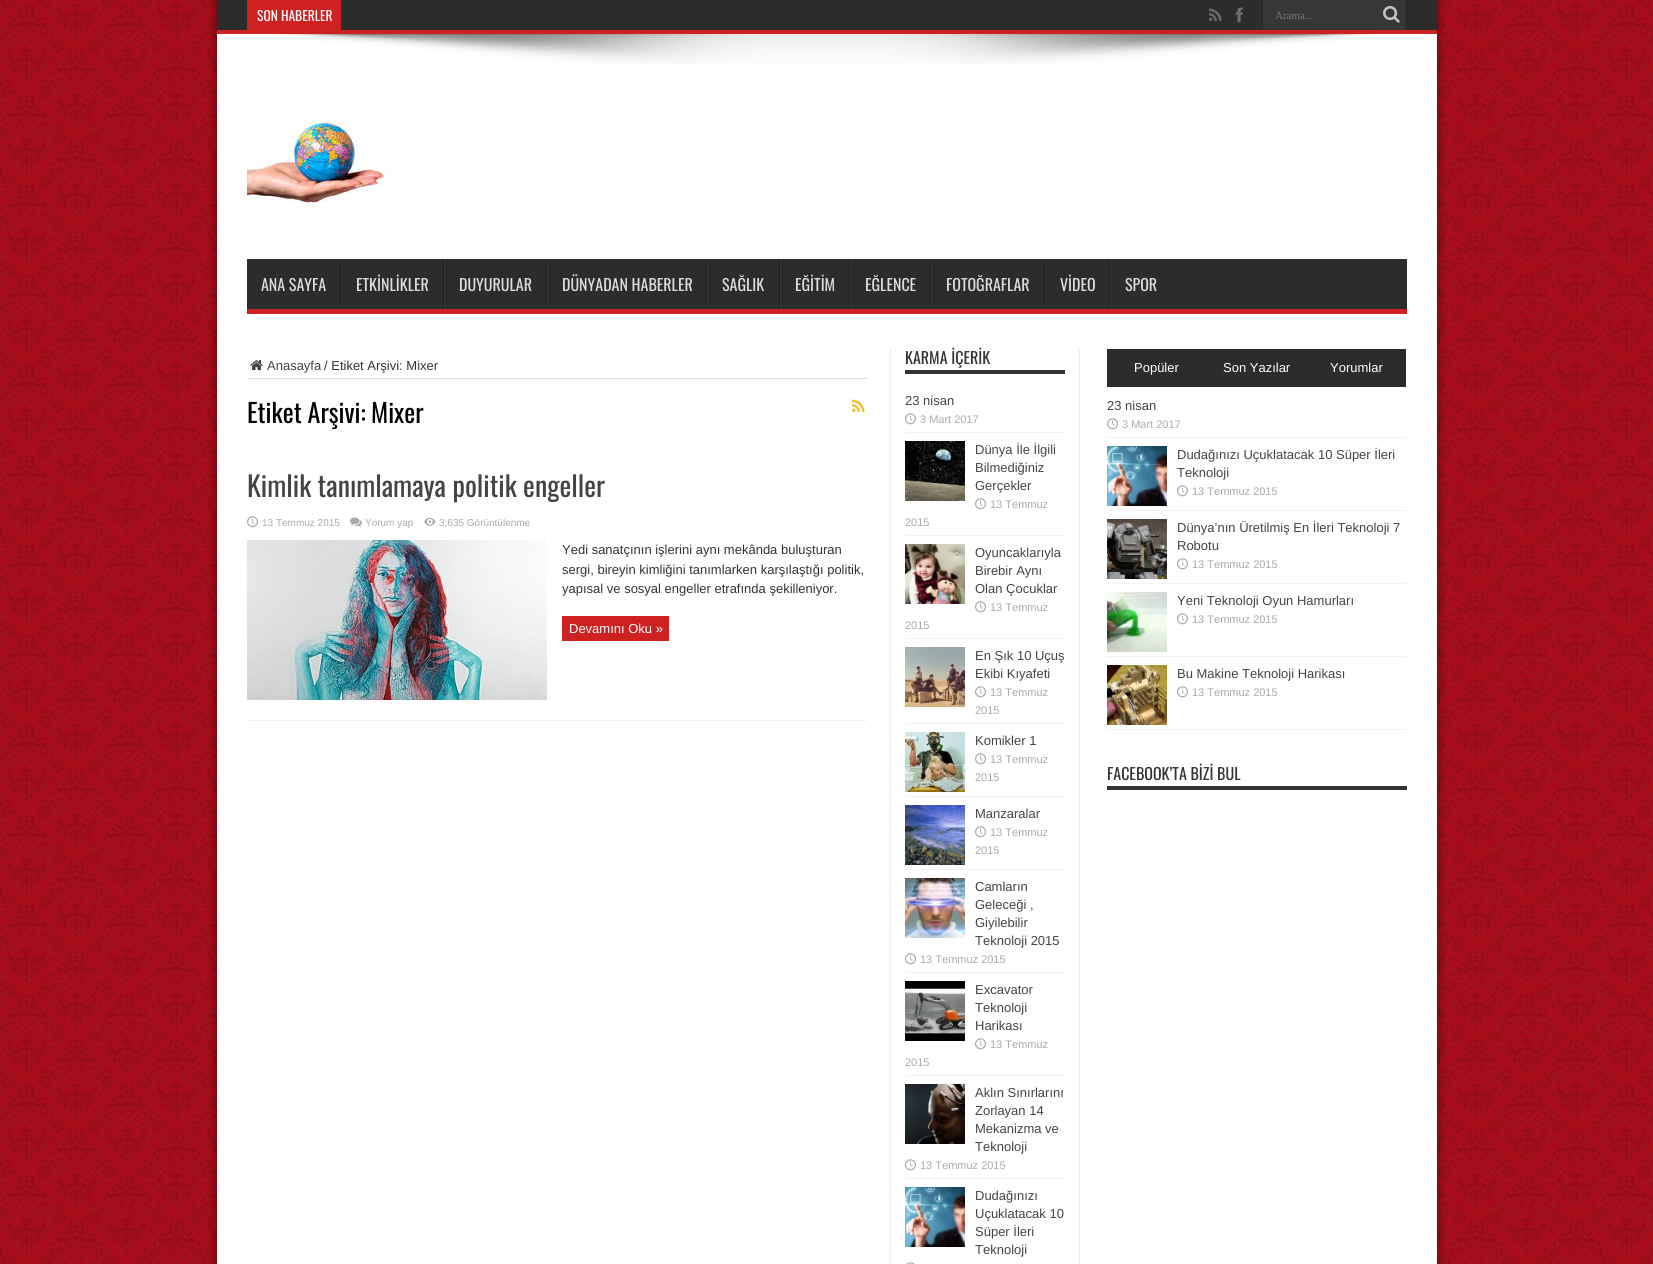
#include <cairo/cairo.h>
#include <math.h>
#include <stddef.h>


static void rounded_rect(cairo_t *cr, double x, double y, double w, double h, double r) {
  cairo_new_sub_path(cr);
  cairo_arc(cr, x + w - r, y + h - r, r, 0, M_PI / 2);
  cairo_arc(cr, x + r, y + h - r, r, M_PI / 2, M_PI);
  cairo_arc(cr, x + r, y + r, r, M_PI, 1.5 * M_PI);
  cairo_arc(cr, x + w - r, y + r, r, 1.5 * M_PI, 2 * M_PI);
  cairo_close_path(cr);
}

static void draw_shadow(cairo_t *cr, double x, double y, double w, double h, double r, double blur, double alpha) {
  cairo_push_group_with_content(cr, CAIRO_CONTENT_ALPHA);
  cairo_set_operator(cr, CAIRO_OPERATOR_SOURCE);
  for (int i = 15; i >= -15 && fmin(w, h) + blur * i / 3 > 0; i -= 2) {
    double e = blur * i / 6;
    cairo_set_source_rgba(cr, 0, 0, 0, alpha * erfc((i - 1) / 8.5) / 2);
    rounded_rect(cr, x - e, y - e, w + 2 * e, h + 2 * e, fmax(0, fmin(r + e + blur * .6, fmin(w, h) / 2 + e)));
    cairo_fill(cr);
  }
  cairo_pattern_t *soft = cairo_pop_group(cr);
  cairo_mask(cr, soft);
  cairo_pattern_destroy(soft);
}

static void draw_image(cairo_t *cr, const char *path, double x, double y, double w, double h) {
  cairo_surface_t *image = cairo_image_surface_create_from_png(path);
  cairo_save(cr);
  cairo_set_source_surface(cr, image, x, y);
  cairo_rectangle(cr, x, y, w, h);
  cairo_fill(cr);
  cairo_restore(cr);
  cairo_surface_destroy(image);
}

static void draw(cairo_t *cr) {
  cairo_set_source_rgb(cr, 168 / 255.0, 12 / 255.0, 25 / 255.0);
  cairo_paint(cr);
  draw_image(cr, "images/1.png", 0, 0, 1653, 1264);
  cairo_set_source_rgb(cr, 0, 0, 0);
  draw_shadow(cr, 217, 0, 1220, 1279, 0, 5, 0.5);
  cairo_set_source_rgb(cr, 1, 1, 1);
  cairo_rectangle(cr, 217, 34, 1220, 1230);
  cairo_fill(cr);
  cairo_set_source_rgb(cr, 44 / 255.0, 44 / 255.0, 44 / 255.0);
  cairo_rectangle(cr, 217, 0, 1220, 30);
  cairo_fill(cr);
  cairo_set_source_rgb(cr, 205 / 255.0, 33 / 255.0, 34 / 255.0);
  cairo_rectangle(cr, 217, 30, 1220, 4);
  cairo_fill(cr);
  cairo_rectangle(cr, 247, 0, 94, 30);
  cairo_fill(cr);
  draw_image(cr, "images/2.png", 1209, 8, 13, 14);
  draw_image(cr, "images/3.png", 1236, 7, 7, 16);
  cairo_set_source_rgb(cr, 55 / 255.0, 55 / 255.0, 55 / 255.0);
  cairo_rectangle(cr, 1263, 0, 114, 29);
  cairo_fill(cr);
  cairo_set_source_rgb(cr, 37 / 255.0, 37 / 255.0, 37 / 255.0);
  cairo_rectangle(cr, 1262, 0, 1, 29);
  cairo_fill(cr);
  cairo_set_source_rgb(cr, 55 / 255.0, 55 / 255.0, 55 / 255.0);
  cairo_rectangle(cr, 1377, 0, 29, 30);
  cairo_fill(cr);
  cairo_set_source_rgb(cr, 37 / 255.0, 37 / 255.0, 37 / 255.0);
  cairo_rectangle(cr, 1406, 0, 1, 30);
  cairo_fill(cr);
  draw_image(cr, "images/4.png", 1383, 6, 17, 17);
  draw_image(cr, "images/5.png", 279, 34, 1096, 30);
  draw_image(cr, "images/6.png", 247, 122, 144, 87);
  cairo_set_source_rgb(cr, 44 / 255.0, 44 / 255.0, 44 / 255.0);
  cairo_rectangle(cr, 247, 259, 1160, 50);
  cairo_fill(cr);
  cairo_set_source_rgb(cr, 205 / 255.0, 33 / 255.0, 34 / 255.0);
  cairo_rectangle(cr, 247, 309, 1160, 5);
  cairo_fill(cr);
  cairo_set_source_rgb(cr, 34 / 255.0, 34 / 255.0, 34 / 255.0);
  cairo_rectangle(cr, 340, 259, 1, 50);
  cairo_fill(cr);
  cairo_set_source_rgb(cr, 56 / 255.0, 56 / 255.0, 56 / 255.0);
  cairo_rectangle(cr, 341, 259, 1, 50);
  cairo_fill(cr);
  cairo_set_source_rgb(cr, 34 / 255.0, 34 / 255.0, 34 / 255.0);
  cairo_rectangle(cr, 443, 259, 1, 50);
  cairo_fill(cr);
  cairo_set_source_rgb(cr, 56 / 255.0, 56 / 255.0, 56 / 255.0);
  cairo_rectangle(cr, 444, 259, 1, 50);
  cairo_fill(cr);
  cairo_set_source_rgb(cr, 34 / 255.0, 34 / 255.0, 34 / 255.0);
  cairo_rectangle(cr, 546, 259, 1, 50);
  cairo_fill(cr);
  cairo_set_source_rgb(cr, 56 / 255.0, 56 / 255.0, 56 / 255.0);
  cairo_rectangle(cr, 547, 259, 1, 50);
  cairo_fill(cr);
  cairo_set_source_rgb(cr, 34 / 255.0, 34 / 255.0, 34 / 255.0);
  cairo_rectangle(cr, 706, 259, 1, 50);
  cairo_fill(cr);
  cairo_set_source_rgb(cr, 56 / 255.0, 56 / 255.0, 56 / 255.0);
  cairo_rectangle(cr, 707, 259, 1, 50);
  cairo_fill(cr);
  cairo_set_source_rgb(cr, 34 / 255.0, 34 / 255.0, 34 / 255.0);
  cairo_rectangle(cr, 779, 259, 1, 50);
  cairo_fill(cr);
  cairo_set_source_rgb(cr, 56 / 255.0, 56 / 255.0, 56 / 255.0);
  cairo_rectangle(cr, 780, 259, 1, 50);
  cairo_fill(cr);
  cairo_set_source_rgb(cr, 34 / 255.0, 34 / 255.0, 34 / 255.0);
  cairo_rectangle(cr, 849, 259, 1, 50);
  cairo_fill(cr);
  cairo_set_source_rgb(cr, 56 / 255.0, 56 / 255.0, 56 / 255.0);
  cairo_rectangle(cr, 850, 259, 1, 50);
  cairo_fill(cr);
  cairo_set_source_rgb(cr, 34 / 255.0, 34 / 255.0, 34 / 255.0);
  cairo_rectangle(cr, 930, 259, 1, 50);
  cairo_fill(cr);
  cairo_set_source_rgb(cr, 56 / 255.0, 56 / 255.0, 56 / 255.0);
  cairo_rectangle(cr, 931, 259, 1, 50);
  cairo_fill(cr);
  cairo_set_source_rgb(cr, 34 / 255.0, 34 / 255.0, 34 / 255.0);
  cairo_rectangle(cr, 1044, 259, 1, 50);
  cairo_fill(cr);
  cairo_set_source_rgb(cr, 56 / 255.0, 56 / 255.0, 56 / 255.0);
  cairo_rectangle(cr, 1045, 259, 1, 50);
  cairo_fill(cr);
  cairo_set_source_rgb(cr, 34 / 255.0, 34 / 255.0, 34 / 255.0);
  cairo_rectangle(cr, 1109, 259, 1, 50);
  cairo_fill(cr);
  cairo_set_source_rgb(cr, 56 / 255.0, 56 / 255.0, 56 / 255.0);
  cairo_rectangle(cr, 1110, 259, 1, 50);
  cairo_fill(cr);
  cairo_set_source_rgb(cr, 221 / 255.0, 221 / 255.0, 221 / 255.0);
  cairo_rectangle(cr, 247, 378, 620, 1);
  cairo_fill(cr);
  draw_image(cr, "images/7.png", 250, 360, 13, 11);
  draw_image(cr, "images/8.png", 852, 399, 13, 14);
  cairo_set_source_rgb(cr, 242 / 255.0, 242 / 255.0, 242 / 255.0);
  cairo_rectangle(cr, 247, 720, 620, 1);
  cairo_fill(cr);
  draw_image(cr, "images/9.png", 247, 516, 11, 12);
  draw_image(cr, "images/10.png", 350, 517, 12, 10);
  draw_image(cr, "images/11.png", 424, 517, 12, 9);
  draw_image(cr, "images/12.png", 247, 540, 300, 160);
  cairo_set_source_rgb(cr, 205 / 255.0, 33 / 255.0, 34 / 255.0);
  cairo_rectangle(cr, 562, 616, 107, 25);
  cairo_fill(cr);
  cairo_set_source_rgb(cr, 234 / 255.0, 234 / 255.0, 234 / 255.0);
  cairo_rectangle(cr, 1079, 349, 1, 915);
  cairo_fill(cr);
  cairo_rectangle(cr, 890, 349, 1, 915);
  cairo_fill(cr);
  cairo_set_source_rgb(cr, 51 / 255.0, 51 / 255.0, 51 / 255.0);
  cairo_rectangle(cr, 905, 370, 160, 4);
  cairo_fill(cr);
  cairo_set_source_rgb(cr, 242 / 255.0, 242 / 255.0, 242 / 255.0);
  cairo_rectangle(cr, 905, 432, 160, 1);
  cairo_fill(cr);
  draw_image(cr, "images/9.png", 905, 413, 11, 12);
  cairo_rectangle(cr, 905, 535, 160, 1);
  cairo_fill(cr);
  draw_image(cr, "images/13.png", 905, 441, 60, 60);
  draw_image(cr, "images/9.png", 975, 498, 11, 12);
  cairo_rectangle(cr, 905, 638, 160, 1);
  cairo_fill(cr);
  draw_image(cr, "images/14.png", 905, 544, 60, 60);
  draw_image(cr, "images/9.png", 975, 601, 11, 12);
  cairo_rectangle(cr, 905, 723, 160, 1);
  cairo_fill(cr);
  draw_image(cr, "images/15.png", 905, 647, 60, 60);
  draw_image(cr, "images/9.png", 975, 686, 11, 12);
  cairo_rectangle(cr, 905, 796, 160, 1);
  cairo_fill(cr);
  draw_image(cr, "images/16.png", 905, 732, 60, 60);
  draw_image(cr, "images/9.png", 975, 753, 11, 12);
  cairo_rectangle(cr, 905, 869, 160, 1);
  cairo_fill(cr);
  draw_image(cr, "images/17.png", 905, 805, 60, 60);
  draw_image(cr, "images/9.png", 975, 826, 11, 12);
  cairo_rectangle(cr, 905, 972, 160, 1);
  cairo_fill(cr);
  draw_image(cr, "images/18.png", 905, 878, 60, 60);
  draw_image(cr, "images/9.png", 905, 953, 11, 12);
  cairo_rectangle(cr, 905, 1075, 160, 1);
  cairo_fill(cr);
  draw_image(cr, "images/19.png", 905, 981, 60, 60);
  draw_image(cr, "images/9.png", 975, 1038, 11, 12);
  cairo_rectangle(cr, 905, 1178, 160, 1);
  cairo_fill(cr);
  draw_image(cr, "images/20.png", 905, 1084, 60, 60);
  draw_image(cr, "images/9.png", 905, 1159, 11, 12);
  draw_image(cr, "images/21.png", 905, 1187, 60, 60);
  draw_image(cr, "images/22.png", 906, 1262, 9, 2);
  cairo_set_source_rgb(cr, 44 / 255.0, 44 / 255.0, 44 / 255.0);
  cairo_rectangle(cr, 1107, 349, 299, 38);
  cairo_fill(cr);
  cairo_set_source_rgb(cr, 242 / 255.0, 242 / 255.0, 242 / 255.0);
  cairo_rectangle(cr, 1107, 437, 300, 1);
  cairo_fill(cr);
  draw_image(cr, "images/9.png", 1107, 418, 11, 12);
  cairo_rectangle(cr, 1107, 510, 300, 1);
  cairo_fill(cr);
  draw_image(cr, "images/23.png", 1107, 446, 60, 60);
  draw_image(cr, "images/9.png", 1177, 485, 11, 12);
  cairo_rectangle(cr, 1107, 583, 300, 1);
  cairo_fill(cr);
  draw_image(cr, "images/24.png", 1107, 519, 60, 60);
  draw_image(cr, "images/9.png", 1177, 558, 11, 12);
  cairo_rectangle(cr, 1107, 656, 300, 1);
  cairo_fill(cr);
  draw_image(cr, "images/25.png", 1107, 592, 60, 60);
  draw_image(cr, "images/9.png", 1177, 613, 11, 12);
  cairo_rectangle(cr, 1107, 729, 300, 1);
  cairo_fill(cr);
  draw_image(cr, "images/26.png", 1107, 665, 60, 60);
  draw_image(cr, "images/9.png", 1177, 686, 11, 12);
  cairo_set_source_rgb(cr, 51 / 255.0, 51 / 255.0, 51 / 255.0);
  cairo_rectangle(cr, 1107, 786, 300, 4);
  cairo_fill(cr);
  cairo_select_font_face(cr, "Oswald", CAIRO_FONT_SLANT_NORMAL, CAIRO_FONT_WEIGHT_NORMAL);
  cairo_set_font_size(cr, 13.5);
  cairo_set_source_rgb(cr, 1, 1, 1);
  cairo_move_to(cr, 257, 21);
  cairo_show_text(cr, "SON HABERLER");
  cairo_select_font_face(cr, "Liberation Serif", CAIRO_FONT_SLANT_NORMAL, CAIRO_FONT_WEIGHT_NORMAL);
  cairo_set_font_size(cr, 11);
  cairo_set_source_rgb(cr, 120 / 255.0, 120 / 255.0, 120 / 255.0);
  cairo_move_to(cr, 1275, 19);
  cairo_show_text(cr, "Arama...");
  cairo_select_font_face(cr, "Oswald", CAIRO_FONT_SLANT_NORMAL, CAIRO_FONT_WEIGHT_NORMAL);
  cairo_set_font_size(cr, 16);
  cairo_set_source_rgb(cr, 221 / 255.0, 221 / 255.0, 221 / 255.0);
  cairo_move_to(cr, 261, 291);
  cairo_show_text(cr, "ANA SAYFA");
  cairo_move_to(cr, 356, 291);
  cairo_show_text(cr, "ETKİNLİKLER");
  cairo_move_to(cr, 459, 291);
  cairo_show_text(cr, "DUYURULAR");
  cairo_move_to(cr, 562, 291);
  cairo_show_text(cr, "DÜNYADAN HABERLER");
  cairo_move_to(cr, 722, 291);
  cairo_show_text(cr, "SAĞLIK");
  cairo_move_to(cr, 795, 291);
  cairo_show_text(cr, "EĞİTİM");
  cairo_move_to(cr, 865, 291);
  cairo_show_text(cr, "EĞLENCE");
  cairo_move_to(cr, 946, 291);
  cairo_show_text(cr, "FOTOĞRAFLAR");
  cairo_move_to(cr, 1060, 291);
  cairo_show_text(cr, "VİDEO");
  cairo_move_to(cr, 1125, 291);
  cairo_show_text(cr, "SPOR");
  cairo_select_font_face(cr, "Liberation Sans", CAIRO_FONT_SLANT_NORMAL, CAIRO_FONT_WEIGHT_NORMAL);
  cairo_set_font_size(cr, 13);
  cairo_set_source_rgb(cr, 68 / 255.0, 68 / 255.0, 68 / 255.0);
  cairo_move_to(cr, 267, 370);
  cairo_show_text(cr, "Anasayfa");
  cairo_set_source_rgb(cr, 51 / 255.0, 51 / 255.0, 51 / 255.0);
  cairo_move_to(cr, 324, 370);
  cairo_show_text(cr, "/ Etiket Arşivi: Mixer");
  cairo_select_font_face(cr, "Oswald", CAIRO_FONT_SLANT_NORMAL, CAIRO_FONT_WEIGHT_NORMAL);
  cairo_set_font_size(cr, 26);
  cairo_set_source_rgb(cr, 0, 0, 0);
  cairo_move_to(cr, 247, 423);
  cairo_show_text(cr, "Etiket Arşivi:");
  cairo_move_to(cr, 371, 423);
  cairo_show_text(cr, "Mixer");
  cairo_set_font_size(cr, 28);
  cairo_set_source_rgb(cr, 68 / 255.0, 68 / 255.0, 68 / 255.0);
  cairo_move_to(cr, 247, 497);
  cairo_show_text(cr, "Kimlik tanımlamaya politik engeller");
  cairo_select_font_face(cr, "Liberation Sans", CAIRO_FONT_SLANT_NORMAL, CAIRO_FONT_WEIGHT_NORMAL);
  cairo_set_font_size(cr, 10);
  cairo_set_source_rgb(cr, 170 / 255.0, 170 / 255.0, 170 / 255.0);
  cairo_move_to(cr, 262, 526);
  cairo_show_text(cr, "13 Temmuz 2015");
  cairo_move_to(cr, 365, 526);
  cairo_show_text(cr, "Yorum yap");
  cairo_move_to(cr, 439, 526);
  cairo_show_text(cr, "3,635 Görüntülenme");
  cairo_set_font_size(cr, 13);
  cairo_set_source_rgb(cr, 51 / 255.0, 51 / 255.0, 51 / 255.0);
  cairo_move_to(cr, 562, 554);
  cairo_show_text(cr, "Yedi sanatçının işlerini aynı mekânda buluşturan");
  cairo_move_to(cr, 562, 574);
  cairo_show_text(cr, "sergi, bireyin kimliğini tanımlarken karşılaştığı politik,");
  cairo_move_to(cr, 562, 593);
  cairo_show_text(cr, "yapısal ve sosyal engeller etrafında şekilleniyor.");
  cairo_set_source_rgb(cr, 1, 1, 1);
  cairo_move_to(cr, 569, 633);
  cairo_show_text(cr, "Devamını Oku »");
  cairo_select_font_face(cr, "Oswald", CAIRO_FONT_SLANT_NORMAL, CAIRO_FONT_WEIGHT_NORMAL);
  cairo_set_font_size(cr, 16);
  cairo_set_source_rgb(cr, 51 / 255.0, 51 / 255.0, 51 / 255.0);
  cairo_move_to(cr, 905, 364);
  cairo_show_text(cr, "KARMA İÇERİK");
  cairo_select_font_face(cr, "Liberation Sans", CAIRO_FONT_SLANT_NORMAL, CAIRO_FONT_WEIGHT_NORMAL);
  cairo_set_font_size(cr, 13);
  cairo_set_source_rgb(cr, 68 / 255.0, 68 / 255.0, 68 / 255.0);
  cairo_move_to(cr, 905, 405);
  cairo_show_text(cr, "23 nisan");
  cairo_set_font_size(cr, 11);
  cairo_set_source_rgb(cr, 170 / 255.0, 170 / 255.0, 170 / 255.0);
  cairo_move_to(cr, 920, 423);
  cairo_show_text(cr, "3 Mart 2017");
  cairo_set_font_size(cr, 13);
  cairo_set_source_rgb(cr, 68 / 255.0, 68 / 255.0, 68 / 255.0);
  cairo_move_to(cr, 975, 454);
  cairo_show_text(cr, "Dünya İle İlgili");
  cairo_move_to(cr, 975, 472);
  cairo_show_text(cr, "Bilmediğiniz");
  cairo_move_to(cr, 975, 490);
  cairo_show_text(cr, "Gerçekler");
  cairo_set_font_size(cr, 11);
  cairo_set_source_rgb(cr, 170 / 255.0, 170 / 255.0, 170 / 255.0);
  cairo_move_to(cr, 990, 508);
  cairo_show_text(cr, "13 Temmuz");
  cairo_move_to(cr, 905, 526);
  cairo_show_text(cr, "2015");
  cairo_set_font_size(cr, 13);
  cairo_set_source_rgb(cr, 68 / 255.0, 68 / 255.0, 68 / 255.0);
  cairo_move_to(cr, 975, 557);
  cairo_show_text(cr, "Oyuncaklarıyla");
  cairo_move_to(cr, 975, 575);
  cairo_show_text(cr, "Birebir Aynı");
  cairo_move_to(cr, 975, 593);
  cairo_show_text(cr, "Olan Çocuklar");
  cairo_set_font_size(cr, 11);
  cairo_set_source_rgb(cr, 170 / 255.0, 170 / 255.0, 170 / 255.0);
  cairo_move_to(cr, 990, 611);
  cairo_show_text(cr, "13 Temmuz");
  cairo_move_to(cr, 905, 629);
  cairo_show_text(cr, "2015");
  cairo_set_font_size(cr, 13);
  cairo_set_source_rgb(cr, 68 / 255.0, 68 / 255.0, 68 / 255.0);
  cairo_move_to(cr, 975, 660);
  cairo_show_text(cr, "En Şık 10 Uçuş");
  cairo_move_to(cr, 975, 678);
  cairo_show_text(cr, "Ekibi Kıyafeti");
  cairo_set_font_size(cr, 11);
  cairo_set_source_rgb(cr, 170 / 255.0, 170 / 255.0, 170 / 255.0);
  cairo_move_to(cr, 990, 696);
  cairo_show_text(cr, "13 Temmuz");
  cairo_move_to(cr, 975, 714);
  cairo_show_text(cr, "2015");
  cairo_set_font_size(cr, 13);
  cairo_set_source_rgb(cr, 68 / 255.0, 68 / 255.0, 68 / 255.0);
  cairo_move_to(cr, 975, 745);
  cairo_show_text(cr, "Komikler 1");
  cairo_set_font_size(cr, 11);
  cairo_set_source_rgb(cr, 170 / 255.0, 170 / 255.0, 170 / 255.0);
  cairo_move_to(cr, 990, 763);
  cairo_show_text(cr, "13 Temmuz");
  cairo_move_to(cr, 975, 781);
  cairo_show_text(cr, "2015");
  cairo_set_font_size(cr, 13);
  cairo_set_source_rgb(cr, 68 / 255.0, 68 / 255.0, 68 / 255.0);
  cairo_move_to(cr, 975, 818);
  cairo_show_text(cr, "Manzaralar");
  cairo_set_font_size(cr, 11);
  cairo_set_source_rgb(cr, 170 / 255.0, 170 / 255.0, 170 / 255.0);
  cairo_move_to(cr, 990, 836);
  cairo_show_text(cr, "13 Temmuz");
  cairo_move_to(cr, 975, 854);
  cairo_show_text(cr, "2015");
  cairo_set_font_size(cr, 13);
  cairo_set_source_rgb(cr, 68 / 255.0, 68 / 255.0, 68 / 255.0);
  cairo_move_to(cr, 975, 891);
  cairo_show_text(cr, "Camların");
  cairo_move_to(cr, 975, 909);
  cairo_show_text(cr, "Geleceği ,");
  cairo_move_to(cr, 975, 927);
  cairo_show_text(cr, "Giyilebilir");
  cairo_move_to(cr, 975, 945);
  cairo_show_text(cr, "Teknoloji 2015");
  cairo_set_font_size(cr, 11);
  cairo_set_source_rgb(cr, 170 / 255.0, 170 / 255.0, 170 / 255.0);
  cairo_move_to(cr, 920, 963);
  cairo_show_text(cr, "13 Temmuz 2015");
  cairo_set_font_size(cr, 13);
  cairo_set_source_rgb(cr, 68 / 255.0, 68 / 255.0, 68 / 255.0);
  cairo_move_to(cr, 975, 994);
  cairo_show_text(cr, "Excavator");
  cairo_move_to(cr, 975, 1012);
  cairo_show_text(cr, "Teknoloji");
  cairo_move_to(cr, 975, 1030);
  cairo_show_text(cr, "Harikası");
  cairo_set_font_size(cr, 11);
  cairo_set_source_rgb(cr, 170 / 255.0, 170 / 255.0, 170 / 255.0);
  cairo_move_to(cr, 990, 1048);
  cairo_show_text(cr, "13 Temmuz");
  cairo_move_to(cr, 905, 1066);
  cairo_show_text(cr, "2015");
  cairo_set_font_size(cr, 13);
  cairo_set_source_rgb(cr, 68 / 255.0, 68 / 255.0, 68 / 255.0);
  cairo_move_to(cr, 975, 1097);
  cairo_show_text(cr, "Aklın Sınırlarını");
  cairo_move_to(cr, 975, 1115);
  cairo_show_text(cr, "Zorlayan 14");
  cairo_move_to(cr, 975, 1133);
  cairo_show_text(cr, "Mekanizma ve");
  cairo_move_to(cr, 975, 1151);
  cairo_show_text(cr, "Teknoloji");
  cairo_set_font_size(cr, 11);
  cairo_set_source_rgb(cr, 170 / 255.0, 170 / 255.0, 170 / 255.0);
  cairo_move_to(cr, 920, 1169);
  cairo_show_text(cr, "13 Temmuz 2015");
  cairo_set_font_size(cr, 13);
  cairo_set_source_rgb(cr, 68 / 255.0, 68 / 255.0, 68 / 255.0);
  cairo_move_to(cr, 975, 1200);
  cairo_show_text(cr, "Dudağınızı");
  cairo_move_to(cr, 975, 1218);
  cairo_show_text(cr, "Uçuklatacak 10");
  cairo_move_to(cr, 975, 1236);
  cairo_show_text(cr, "Süper İleri");
  cairo_move_to(cr, 975, 1254);
  cairo_show_text(cr, "Teknoloji");
  cairo_set_source_rgb(cr, 1, 1, 1);
  cairo_move_to(cr, 1134, 372);
  cairo_show_text(cr, "Popüler");
  cairo_move_to(cr, 1223, 372);
  cairo_show_text(cr, "Son Yazılar");
  cairo_move_to(cr, 1330, 372);
  cairo_show_text(cr, "Yorumlar");
  cairo_set_source_rgb(cr, 68 / 255.0, 68 / 255.0, 68 / 255.0);
  cairo_move_to(cr, 1107, 410);
  cairo_show_text(cr, "23 nisan");
  cairo_set_font_size(cr, 11);
  cairo_set_source_rgb(cr, 170 / 255.0, 170 / 255.0, 170 / 255.0);
  cairo_move_to(cr, 1122, 428);
  cairo_show_text(cr, "3 Mart 2017");
  cairo_set_font_size(cr, 13);
  cairo_set_source_rgb(cr, 68 / 255.0, 68 / 255.0, 68 / 255.0);
  cairo_move_to(cr, 1177, 459);
  cairo_show_text(cr, "Dudağınızı Uçuklatacak 10 Süper İleri");
  cairo_move_to(cr, 1177, 477);
  cairo_show_text(cr, "Teknoloji");
  cairo_set_font_size(cr, 11);
  cairo_set_source_rgb(cr, 170 / 255.0, 170 / 255.0, 170 / 255.0);
  cairo_move_to(cr, 1192, 495);
  cairo_show_text(cr, "13 Temmuz 2015");
  cairo_set_font_size(cr, 13);
  cairo_set_source_rgb(cr, 68 / 255.0, 68 / 255.0, 68 / 255.0);
  cairo_move_to(cr, 1177, 532);
  cairo_show_text(cr, "Dünya’nın Üretilmiş En İleri Teknoloji 7");
  cairo_move_to(cr, 1177, 550);
  cairo_show_text(cr, "Robotu");
  cairo_set_font_size(cr, 11);
  cairo_set_source_rgb(cr, 170 / 255.0, 170 / 255.0, 170 / 255.0);
  cairo_move_to(cr, 1192, 568);
  cairo_show_text(cr, "13 Temmuz 2015");
  cairo_set_font_size(cr, 13);
  cairo_set_source_rgb(cr, 68 / 255.0, 68 / 255.0, 68 / 255.0);
  cairo_move_to(cr, 1177, 605);
  cairo_show_text(cr, "Yeni Teknoloji Oyun Hamurları");
  cairo_set_font_size(cr, 11);
  cairo_set_source_rgb(cr, 170 / 255.0, 170 / 255.0, 170 / 255.0);
  cairo_move_to(cr, 1192, 623);
  cairo_show_text(cr, "13 Temmuz 2015");
  cairo_set_font_size(cr, 13);
  cairo_set_source_rgb(cr, 68 / 255.0, 68 / 255.0, 68 / 255.0);
  cairo_move_to(cr, 1177, 678);
  cairo_show_text(cr, "Bu Makine Teknoloji Harikası");
  cairo_set_font_size(cr, 11);
  cairo_set_source_rgb(cr, 170 / 255.0, 170 / 255.0, 170 / 255.0);
  cairo_move_to(cr, 1192, 696);
  cairo_show_text(cr, "13 Temmuz 2015");
  cairo_select_font_face(cr, "Oswald", CAIRO_FONT_SLANT_NORMAL, CAIRO_FONT_WEIGHT_NORMAL);
  cairo_set_font_size(cr, 16);
  cairo_set_source_rgb(cr, 51 / 255.0, 51 / 255.0, 51 / 255.0);
  cairo_move_to(cr, 1107, 780);
  cairo_show_text(cr, "FACEBOOK’TA BİZİ BUL");
}

int main(void) {
  cairo_surface_t *surface = cairo_image_surface_create(CAIRO_FORMAT_RGB24, 1653, 1264);
  cairo_t *cr = cairo_create(surface);
  cairo_font_options_t *options = cairo_font_options_create();
  cairo_font_options_set_hint_metrics(options, CAIRO_HINT_METRICS_OFF);
  cairo_font_options_set_hint_style(options, CAIRO_HINT_STYLE_NONE);
  cairo_set_font_options(cr, options);
  cairo_set_miter_limit(cr, 4);
  draw(cr);
  cairo_surface_write_to_png(surface, "out.png");
  cairo_font_options_destroy(options);
  cairo_destroy(cr);
  cairo_surface_destroy(surface);
  return 0;
}
